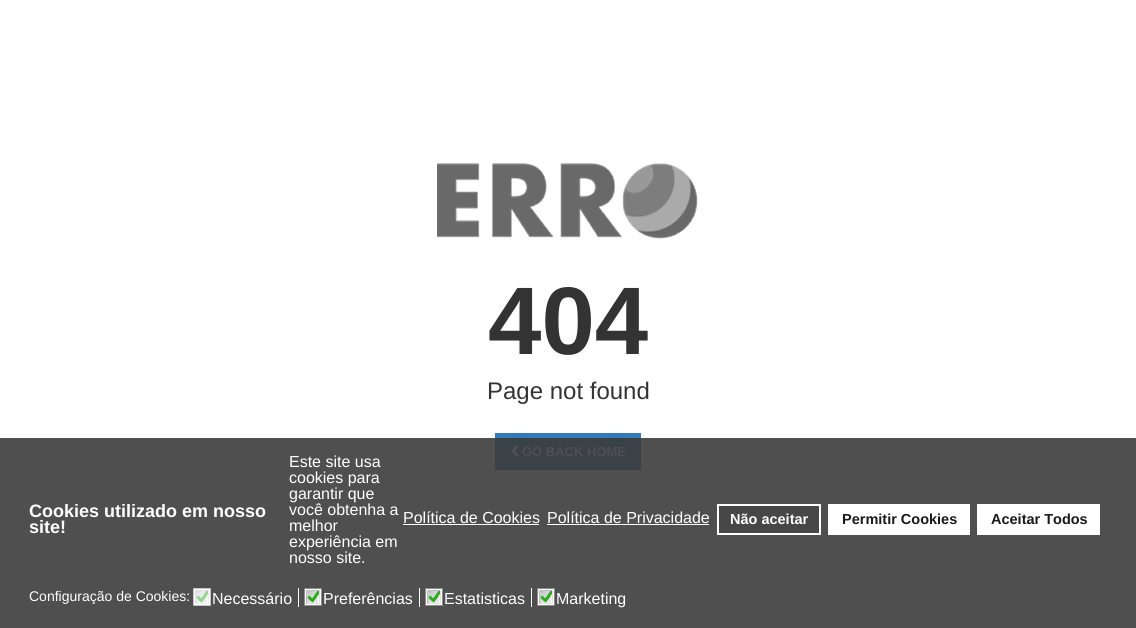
#include <cairo/cairo.h>
#include <math.h>
#include <stddef.h>


static void rounded_rect(cairo_t *cr, double x, double y, double w, double h, double r) {
  cairo_new_sub_path(cr);
  cairo_arc(cr, x + w - r, y + h - r, r, 0, M_PI / 2);
  cairo_arc(cr, x + r, y + h - r, r, M_PI / 2, M_PI);
  cairo_arc(cr, x + r, y + r, r, M_PI, 1.5 * M_PI);
  cairo_arc(cr, x + w - r, y + r, r, 1.5 * M_PI, 2 * M_PI);
  cairo_close_path(cr);
}

static void draw_image(cairo_t *cr, const char *path, double x, double y, double w, double h) {
  cairo_surface_t *image = cairo_image_surface_create_from_png(path);
  cairo_save(cr);
  cairo_set_source_surface(cr, image, x, y);
  cairo_rectangle(cr, x, y, w, h);
  cairo_fill(cr);
  cairo_restore(cr);
  cairo_surface_destroy(image);
}

static void draw(cairo_t *cr) {
  cairo_set_source_rgb(cr, 1, 1, 1);
  cairo_paint(cr);
  cairo_set_source_rgb(cr, 79 / 255.0, 79 / 255.0, 79 / 255.0);
  cairo_rectangle(cr, 0, 438, 1136, 190);
  cairo_fill(cr);
  draw_image(cr, "images/1.png", 437, 163, 261, 76);
  cairo_set_source_rgb(cr, 51 / 255.0, 122 / 255.0, 183 / 255.0);
  cairo_rectangle(cr, 495, 433, 146, 5);
  cairo_fill(cr);
  cairo_set_source_rgb(cr, 58 / 255.0, 65 / 255.0, 71 / 255.0);
  cairo_rectangle(cr, 495, 438, 146, 32);
  cairo_fill(cr);
  draw_image(cr, "images/2.png", 511, 445, 8, 12);
  cairo_set_source_rgb(cr, 1, 1, 1);
  cairo_rectangle(cr, 403, 524, 136, 1);
  cairo_fill(cr);
  cairo_rectangle(cr, 547, 524, 162, 1);
  cairo_fill(cr);
  cairo_set_source_rgb(cr, 71 / 255.0, 71 / 255.0, 71 / 255.0);
  cairo_rectangle(cr, 718, 505, 102, 29);
  cairo_fill_preserve(cr);
  cairo_set_source_rgb(cr, 1, 1, 1);
  cairo_stroke(cr);
  cairo_rectangle(cr, 828, 504, 142, 31);
  cairo_fill(cr);
  cairo_rectangle(cr, 977, 504, 123, 31);
  cairo_fill(cr);
  rounded_rect(cr, 193.5, 588.5, 17, 17, 0.5);
  cairo_fill_preserve(cr);
  cairo_set_source_rgb(cr, 198 / 255.0, 198 / 255.0, 198 / 255.0);
  cairo_set_line_width(cr, 1);
  cairo_stroke(cr);
  draw_image(cr, "images/3.png", 195, 591, 13, 13);
  cairo_new_path(cr);
  cairo_move_to(cr, 208.5, 590.5);
  cairo_line_to(cr, 208.5, 597);
  cairo_curve_to(cr, 208.5, 605.5, 210.5, 603.5, 202, 603.5);
  cairo_line_to(cr, 195.5, 603.5);
  cairo_set_source_rgb(cr, 239 / 255.0, 240 / 255.0, 240 / 255.0);
  cairo_stroke(cr);
  cairo_new_path(cr);
  cairo_move_to(cr, 195.5, 603.5);
  cairo_line_to(cr, 195.5, 597);
  cairo_curve_to(cr, 195.5, 588.5, 193.5, 590.5, 202, 590.5);
  cairo_line_to(cr, 208.5, 590.5);
  cairo_set_source_rgb(cr, 221 / 255.0, 221 / 255.0, 221 / 255.0);
  cairo_stroke(cr);
  cairo_set_source_rgb(cr, 1, 1, 1);
  cairo_rectangle(cr, 298, 588, 1, 19);
  cairo_fill(cr);
  rounded_rect(cr, 304.5, 588.5, 17, 17, 0.5);
  cairo_fill_preserve(cr);
  cairo_set_source_rgb(cr, 141 / 255.0, 141 / 255.0, 141 / 255.0);
  cairo_stroke(cr);
  draw_image(cr, "images/4.png", 306, 590, 14, 14);
  cairo_new_path(cr);
  cairo_move_to(cr, 319.5, 590.5);
  cairo_line_to(cr, 319.5, 597);
  cairo_curve_to(cr, 319.5, 605.5, 321.5, 603.5, 313, 603.5);
  cairo_line_to(cr, 306.5, 603.5);
  cairo_set_source_rgb(cr, 224 / 255.0, 224 / 255.0, 225 / 255.0);
  cairo_stroke(cr);
  cairo_new_path(cr);
  cairo_move_to(cr, 306.5, 603.5);
  cairo_line_to(cr, 306.5, 597);
  cairo_curve_to(cr, 306.5, 588.5, 304.5, 590.5, 313, 590.5);
  cairo_line_to(cr, 319.5, 590.5);
  cairo_set_source_rgb(cr, 187 / 255.0, 187 / 255.0, 187 / 255.0);
  cairo_stroke(cr);
  cairo_set_source_rgb(cr, 1, 1, 1);
  cairo_rectangle(cr, 419, 588, 1, 19);
  cairo_fill(cr);
  rounded_rect(cr, 425.5, 588.5, 17, 17, 0.5);
  cairo_fill_preserve(cr);
  cairo_set_source_rgb(cr, 141 / 255.0, 141 / 255.0, 141 / 255.0);
  cairo_stroke(cr);
  draw_image(cr, "images/4.png", 427, 590, 14, 14);
  cairo_new_path(cr);
  cairo_move_to(cr, 440.5, 590.5);
  cairo_line_to(cr, 440.5, 597);
  cairo_curve_to(cr, 440.5, 605.5, 442.5, 603.5, 434, 603.5);
  cairo_line_to(cr, 427.5, 603.5);
  cairo_set_source_rgb(cr, 224 / 255.0, 224 / 255.0, 225 / 255.0);
  cairo_stroke(cr);
  cairo_new_path(cr);
  cairo_move_to(cr, 427.5, 603.5);
  cairo_line_to(cr, 427.5, 597);
  cairo_curve_to(cr, 427.5, 588.5, 425.5, 590.5, 434, 590.5);
  cairo_line_to(cr, 440.5, 590.5);
  cairo_set_source_rgb(cr, 187 / 255.0, 187 / 255.0, 187 / 255.0);
  cairo_stroke(cr);
  cairo_set_source_rgb(cr, 1, 1, 1);
  cairo_rectangle(cr, 531, 588, 1, 19);
  cairo_fill(cr);
  rounded_rect(cr, 537.5, 588.5, 17, 17, 0.5);
  cairo_fill_preserve(cr);
  cairo_set_source_rgb(cr, 141 / 255.0, 141 / 255.0, 141 / 255.0);
  cairo_stroke(cr);
  draw_image(cr, "images/4.png", 539, 590, 14, 14);
  cairo_new_path(cr);
  cairo_move_to(cr, 552.5, 590.5);
  cairo_line_to(cr, 552.5, 597);
  cairo_curve_to(cr, 552.5, 605.5, 554.5, 603.5, 546, 603.5);
  cairo_line_to(cr, 539.5, 603.5);
  cairo_set_source_rgb(cr, 224 / 255.0, 224 / 255.0, 225 / 255.0);
  cairo_stroke(cr);
  cairo_new_path(cr);
  cairo_move_to(cr, 539.5, 603.5);
  cairo_line_to(cr, 539.5, 597);
  cairo_curve_to(cr, 539.5, 588.5, 537.5, 590.5, 546, 590.5);
  cairo_line_to(cr, 552.5, 590.5);
  cairo_set_source_rgb(cr, 187 / 255.0, 187 / 255.0, 187 / 255.0);
  cairo_stroke(cr);
  cairo_select_font_face(cr, "Liberation Sans", CAIRO_FONT_SLANT_NORMAL, CAIRO_FONT_WEIGHT_BOLD);
  cairo_set_font_size(cr, 96);
  cairo_set_source_rgb(cr, 51 / 255.0, 51 / 255.0, 51 / 255.0);
  cairo_move_to(cr, 488, 354);
  cairo_show_text(cr, "404");
  cairo_select_font_face(cr, "Liberation Sans", CAIRO_FONT_SLANT_NORMAL, CAIRO_FONT_WEIGHT_NORMAL);
  cairo_set_font_size(cr, 24);
  cairo_move_to(cr, 487, 399);
  cairo_show_text(cr, "Page not found");
  cairo_select_font_face(cr, "Liberation Sans", CAIRO_FONT_SLANT_NORMAL, CAIRO_FONT_WEIGHT_BOLD);
  cairo_set_font_size(cr, 13);
  cairo_set_source_rgb(cr, 79 / 255.0, 79 / 255.0, 79 / 255.0);
  cairo_move_to(cr, 522, 456);
  cairo_show_text(cr, "GO BACK HOME");
  cairo_set_font_size(cr, 18);
  cairo_set_source_rgb(cr, 1, 1, 1);
  cairo_move_to(cr, 29, 517);
  cairo_show_text(cr, "Cookies utilizado em nosso");
  cairo_move_to(cr, 29, 533);
  cairo_show_text(cr, "site!");
  cairo_select_font_face(cr, "Liberation Sans", CAIRO_FONT_SLANT_NORMAL, CAIRO_FONT_WEIGHT_NORMAL);
  cairo_set_font_size(cr, 16);
  cairo_move_to(cr, 289, 467);
  cairo_show_text(cr, "Este site usa");
  cairo_move_to(cr, 289, 483);
  cairo_show_text(cr, "cookies para");
  cairo_move_to(cr, 289, 499);
  cairo_show_text(cr, "garantir que");
  cairo_move_to(cr, 289, 515);
  cairo_show_text(cr, "você obtenha a");
  cairo_move_to(cr, 289, 531);
  cairo_show_text(cr, "melhor");
  cairo_move_to(cr, 289, 547);
  cairo_show_text(cr, "experiência em");
  cairo_move_to(cr, 289, 563);
  cairo_show_text(cr, "nosso site.");
  cairo_move_to(cr, 403, 523);
  cairo_show_text(cr, "Política de Cookies");
  cairo_move_to(cr, 547, 523);
  cairo_show_text(cr, "Política de Privacidade");
  cairo_select_font_face(cr, "Liberation Sans", CAIRO_FONT_SLANT_NORMAL, CAIRO_FONT_WEIGHT_BOLD);
  cairo_set_font_size(cr, 14.5);
  cairo_move_to(cr, 730, 524);
  cairo_show_text(cr, "Não aceitar");
  cairo_set_source_rgb(cr, 26 / 255.0, 26 / 255.0, 26 / 255.0);
  cairo_move_to(cr, 842, 524);
  cairo_show_text(cr, "Permitir Cookies");
  cairo_move_to(cr, 991, 524);
  cairo_show_text(cr, "Aceitar Todos");
  cairo_select_font_face(cr, "Liberation Sans", CAIRO_FONT_SLANT_NORMAL, CAIRO_FONT_WEIGHT_NORMAL);
  cairo_set_font_size(cr, 14);
  cairo_set_source_rgb(cr, 1, 1, 1);
  cairo_move_to(cr, 29, 601);
  cairo_show_text(cr, "Configuração de Cookies:");
  cairo_set_font_size(cr, 16);
  cairo_move_to(cr, 212, 604);
  cairo_show_text(cr, "Necessário");
  cairo_move_to(cr, 323, 604);
  cairo_show_text(cr, "Preferências");
  cairo_move_to(cr, 444, 604);
  cairo_show_text(cr, "Estatisticas");
  cairo_move_to(cr, 556, 604);
  cairo_show_text(cr, "Marketing");
}

int main(void) {
  cairo_surface_t *surface = cairo_image_surface_create(CAIRO_FORMAT_RGB24, 1136, 628);
  cairo_t *cr = cairo_create(surface);
  cairo_font_options_t *options = cairo_font_options_create();
  cairo_font_options_set_hint_metrics(options, CAIRO_HINT_METRICS_OFF);
  cairo_font_options_set_hint_style(options, CAIRO_HINT_STYLE_NONE);
  cairo_set_font_options(cr, options);
  cairo_set_miter_limit(cr, 4);
  draw(cr);
  cairo_surface_write_to_png(surface, "out.png");
  cairo_font_options_destroy(options);
  cairo_destroy(cr);
  cairo_surface_destroy(surface);
  return 0;
}
